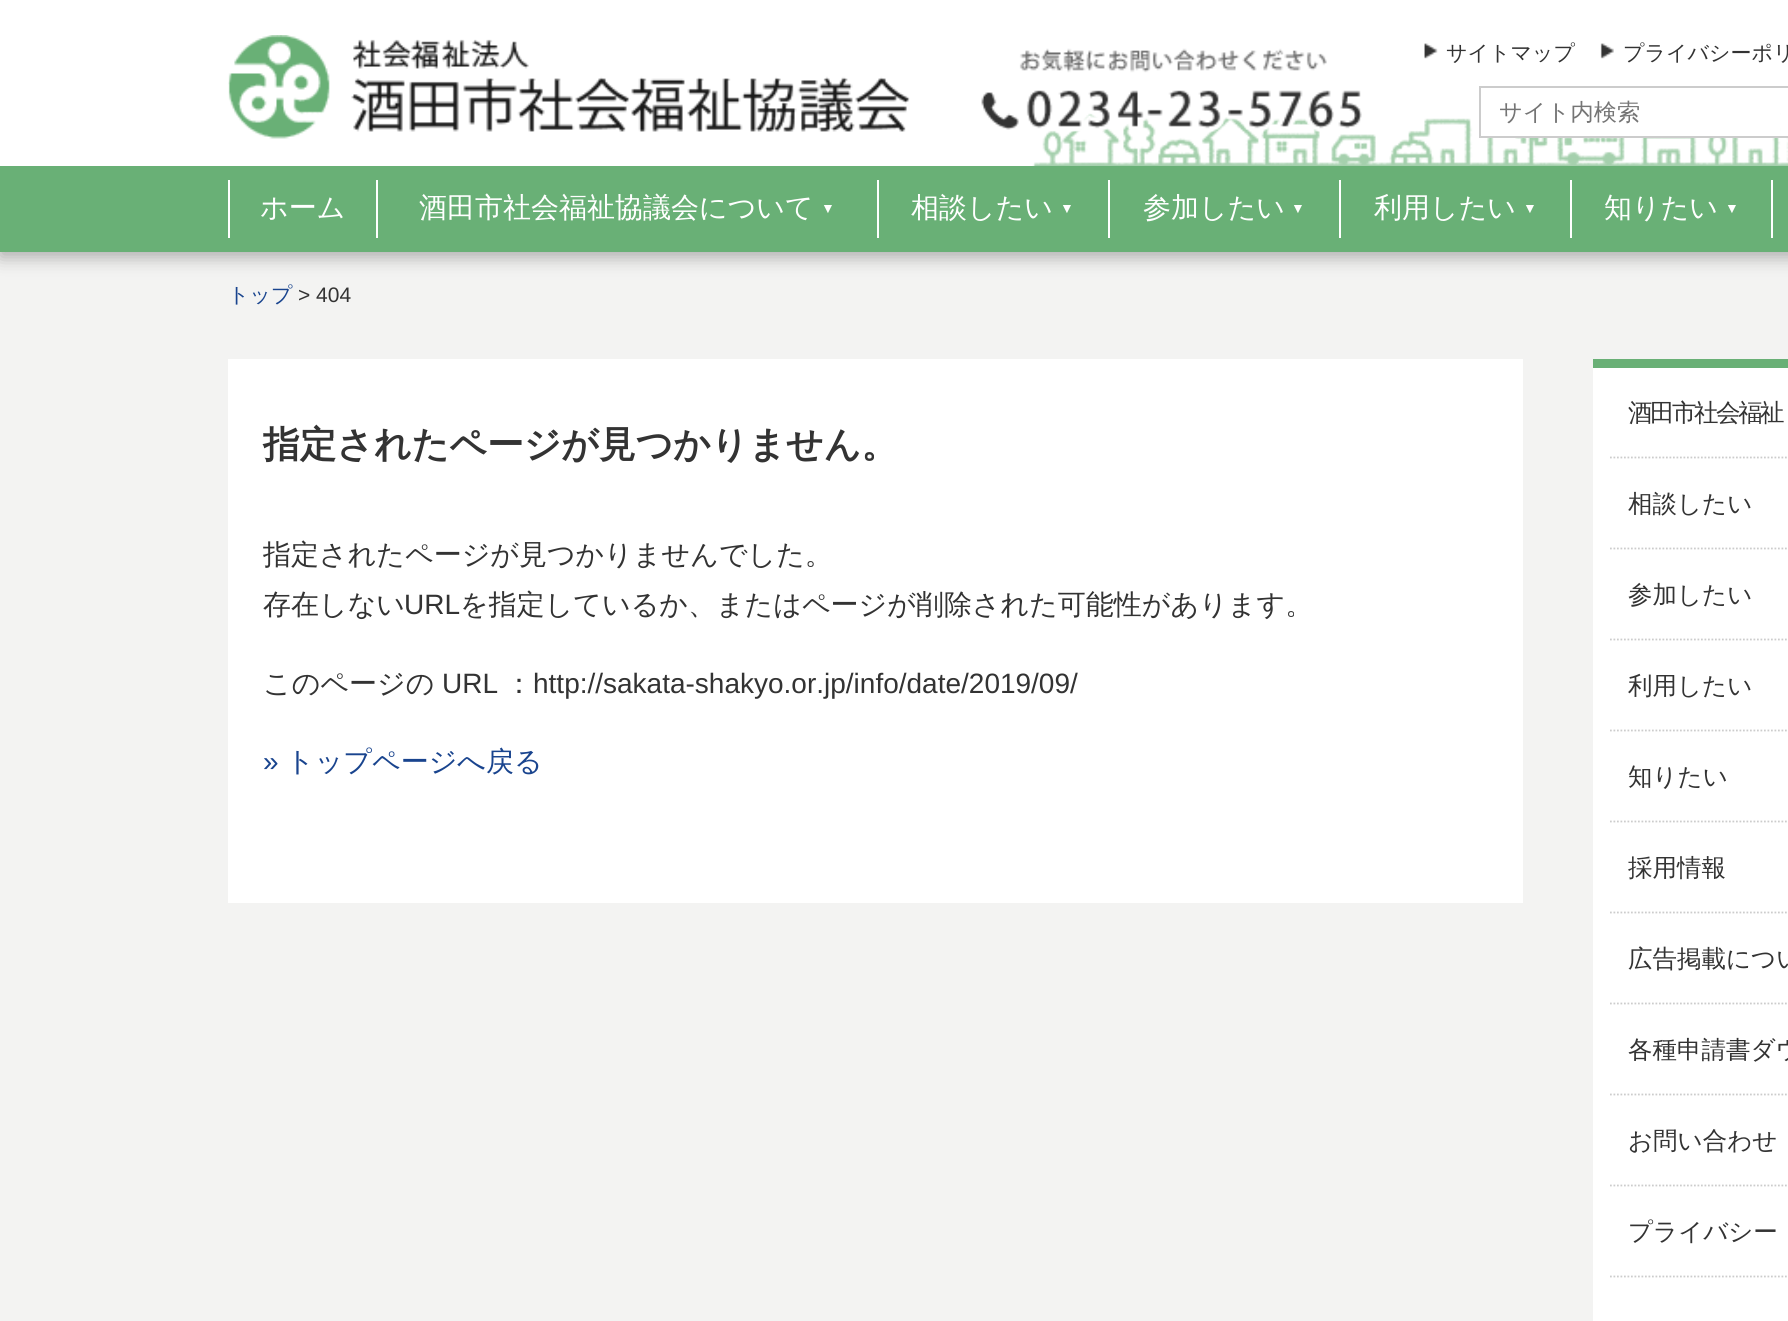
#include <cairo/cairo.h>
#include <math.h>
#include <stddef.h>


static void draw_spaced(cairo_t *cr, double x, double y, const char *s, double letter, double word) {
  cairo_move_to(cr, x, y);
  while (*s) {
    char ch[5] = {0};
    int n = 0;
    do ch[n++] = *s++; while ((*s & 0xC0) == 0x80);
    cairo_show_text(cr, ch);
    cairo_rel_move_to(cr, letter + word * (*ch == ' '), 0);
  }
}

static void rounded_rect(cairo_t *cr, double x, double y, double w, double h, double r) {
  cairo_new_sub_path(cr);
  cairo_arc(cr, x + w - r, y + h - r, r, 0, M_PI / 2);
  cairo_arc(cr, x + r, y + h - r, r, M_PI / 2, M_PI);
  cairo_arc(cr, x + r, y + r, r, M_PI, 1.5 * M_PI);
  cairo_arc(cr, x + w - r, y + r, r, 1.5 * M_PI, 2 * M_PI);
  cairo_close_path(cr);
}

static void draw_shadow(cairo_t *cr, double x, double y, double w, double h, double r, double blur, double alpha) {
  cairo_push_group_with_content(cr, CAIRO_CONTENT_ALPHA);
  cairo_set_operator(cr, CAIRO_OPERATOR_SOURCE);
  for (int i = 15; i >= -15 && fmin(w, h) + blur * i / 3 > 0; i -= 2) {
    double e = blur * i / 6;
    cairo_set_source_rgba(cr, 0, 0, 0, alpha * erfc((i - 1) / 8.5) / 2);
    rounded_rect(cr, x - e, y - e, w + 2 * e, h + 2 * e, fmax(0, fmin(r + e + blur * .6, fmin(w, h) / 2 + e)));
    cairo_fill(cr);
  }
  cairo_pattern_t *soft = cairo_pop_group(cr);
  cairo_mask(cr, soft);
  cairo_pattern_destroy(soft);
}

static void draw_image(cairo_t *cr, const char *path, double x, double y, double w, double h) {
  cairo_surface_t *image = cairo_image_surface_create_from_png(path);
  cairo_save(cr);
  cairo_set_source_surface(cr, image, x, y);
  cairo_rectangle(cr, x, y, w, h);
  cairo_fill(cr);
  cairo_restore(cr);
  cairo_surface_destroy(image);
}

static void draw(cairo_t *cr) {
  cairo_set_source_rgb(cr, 243 / 255.0, 243 / 255.0, 242 / 255.0);
  cairo_paint(cr);
  cairo_set_source_rgb(cr, 0, 0, 0);
  draw_shadow(cr, 0, 172, 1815, 85, 0, 9, 0.3);
  cairo_set_source_rgb(cr, 1, 1, 1);
  cairo_rectangle(cr, 0, 0, 1788, 166);
  cairo_fill(cr);
  draw_image(cr, "images/1.png", 1032, 113, 756, 53);
  draw_image(cr, "images/2.png", 228, 35, 682, 104);
  draw_image(cr, "images/3.png", 981, 48, 381, 84);
  draw_image(cr, "images/4.png", 1424, 43, 14, 16);
  draw_image(cr, "images/5.png", 1600, 43, 14, 16);
  cairo_rectangle(cr, 1487, 113, 293, 23);
  cairo_fill(cr);
  cairo_rectangle(cr, 1480, 87, 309, 50);
  cairo_set_source_rgb(cr, 204 / 255.0, 204 / 255.0, 204 / 255.0);
  cairo_stroke(cr);
  cairo_set_source_rgb(cr, 105 / 255.0, 176 / 255.0, 118 / 255.0);
  cairo_rectangle(cr, 0, 166, 1788, 86);
  cairo_fill(cr);
  cairo_set_source_rgb(cr, 1, 1, 1);
  cairo_rectangle(cr, 228, 180, 2, 58);
  cairo_fill(cr);
  cairo_rectangle(cr, 376, 180, 2, 58);
  cairo_fill(cr);
  cairo_rectangle(cr, 877, 180, 2, 58);
  cairo_fill(cr);
  cairo_rectangle(cr, 1108, 180, 2, 58);
  cairo_fill(cr);
  cairo_rectangle(cr, 1339, 180, 2, 58);
  cairo_fill(cr);
  cairo_rectangle(cr, 1570, 180, 2, 58);
  cairo_fill(cr);
  cairo_rectangle(cr, 1771, 180, 2, 58);
  cairo_fill(cr);
  cairo_rectangle(cr, 228, 359, 1295, 544);
  cairo_fill(cr);
  cairo_rectangle(cr, 1593, 368, 195, 953);
  cairo_fill(cr);
  cairo_set_source_rgb(cr, 105 / 255.0, 176 / 255.0, 118 / 255.0);
  cairo_rectangle(cr, 1593, 359, 195, 9);
  cairo_fill(cr);
  cairo_new_path(cr);
  cairo_move_to(cr, 1610, 457.5);
  cairo_line_to(cr, 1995, 457.5);
  cairo_set_source_rgb(cr, 204 / 255.0, 204 / 255.0, 204 / 255.0);
  cairo_set_line_width(cr, 1.8);
  cairo_set_dash(cr, (double[]){1.75, 1.75}, 2, 0);
  cairo_stroke(cr);
  cairo_new_path(cr);
  cairo_move_to(cr, 1610, 548.5);
  cairo_line_to(cr, 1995, 548.5);
  cairo_stroke(cr);
  cairo_new_path(cr);
  cairo_move_to(cr, 1610, 639.5);
  cairo_line_to(cr, 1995, 639.5);
  cairo_stroke(cr);
  cairo_new_path(cr);
  cairo_move_to(cr, 1610, 730.5);
  cairo_line_to(cr, 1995, 730.5);
  cairo_stroke(cr);
  cairo_new_path(cr);
  cairo_move_to(cr, 1610, 821.5);
  cairo_line_to(cr, 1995, 821.5);
  cairo_stroke(cr);
  cairo_new_path(cr);
  cairo_move_to(cr, 1610, 912.5);
  cairo_line_to(cr, 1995, 912.5);
  cairo_stroke(cr);
  cairo_new_path(cr);
  cairo_move_to(cr, 1610, 1003.5);
  cairo_line_to(cr, 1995, 1003.5);
  cairo_stroke(cr);
  cairo_new_path(cr);
  cairo_move_to(cr, 1610, 1094.5);
  cairo_line_to(cr, 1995, 1094.5);
  cairo_stroke(cr);
  cairo_new_path(cr);
  cairo_move_to(cr, 1610, 1185.5);
  cairo_line_to(cr, 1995, 1185.5);
  cairo_stroke(cr);
  cairo_new_path(cr);
  cairo_move_to(cr, 1610, 1276.5);
  cairo_line_to(cr, 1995, 1276.5);
  cairo_stroke(cr);
  cairo_select_font_face(cr, "WenQuanYi Zen Hei Medium", CAIRO_FONT_SLANT_NORMAL, CAIRO_FONT_WEIGHT_NORMAL);
  cairo_set_font_size(cr, 21);
  cairo_set_source_rgb(cr, 51 / 255.0, 51 / 255.0, 51 / 255.0);
  cairo_move_to(cr, 1446, 60);
  cairo_show_text(cr, "サイトマップ");
  cairo_move_to(cr, 1623, 60);
  cairo_show_text(cr, "プライバシーポリ");
  cairo_set_font_size(cr, 23.25);
  cairo_set_source_rgb(cr, 117 / 255.0, 117 / 255.0, 117 / 255.0);
  cairo_move_to(cr, 1499, 120);
  cairo_show_text(cr, "サイト内検索");
  cairo_set_font_size(cr, 28);
  cairo_set_source_rgb(cr, 1, 1, 1);
  cairo_move_to(cr, 260, 217);
  cairo_show_text(cr, "ホーム");
  cairo_move_to(cr, 419, 217);
  cairo_show_text(cr, "酒田市社会福祉協議会について");
  cairo_select_font_face(cr, "Liberation Sans", CAIRO_FONT_SLANT_NORMAL, CAIRO_FONT_WEIGHT_NORMAL);
  cairo_set_font_size(cr, 14);
  cairo_move_to(cr, 821, 213);
  cairo_show_text(cr, "▼");
  cairo_select_font_face(cr, "WenQuanYi Zen Hei Medium", CAIRO_FONT_SLANT_NORMAL, CAIRO_FONT_WEIGHT_NORMAL);
  cairo_set_font_size(cr, 28);
  cairo_move_to(cr, 911, 217);
  cairo_show_text(cr, "相談したい");
  cairo_select_font_face(cr, "Liberation Sans", CAIRO_FONT_SLANT_NORMAL, CAIRO_FONT_WEIGHT_NORMAL);
  cairo_set_font_size(cr, 14);
  cairo_move_to(cr, 1060, 213);
  cairo_show_text(cr, "▼");
  cairo_select_font_face(cr, "WenQuanYi Zen Hei Medium", CAIRO_FONT_SLANT_NORMAL, CAIRO_FONT_WEIGHT_NORMAL);
  cairo_set_font_size(cr, 28);
  cairo_move_to(cr, 1143, 217);
  cairo_show_text(cr, "参加したい");
  cairo_select_font_face(cr, "Liberation Sans", CAIRO_FONT_SLANT_NORMAL, CAIRO_FONT_WEIGHT_NORMAL);
  cairo_set_font_size(cr, 14);
  cairo_move_to(cr, 1291, 213);
  cairo_show_text(cr, "▼");
  cairo_select_font_face(cr, "WenQuanYi Zen Hei Medium", CAIRO_FONT_SLANT_NORMAL, CAIRO_FONT_WEIGHT_NORMAL);
  cairo_set_font_size(cr, 28);
  cairo_move_to(cr, 1374, 217);
  cairo_show_text(cr, "利用したい");
  cairo_select_font_face(cr, "Liberation Sans", CAIRO_FONT_SLANT_NORMAL, CAIRO_FONT_WEIGHT_NORMAL);
  cairo_set_font_size(cr, 14);
  cairo_move_to(cr, 1523, 213);
  cairo_show_text(cr, "▼");
  cairo_select_font_face(cr, "WenQuanYi Zen Hei Medium", CAIRO_FONT_SLANT_NORMAL, CAIRO_FONT_WEIGHT_NORMAL);
  cairo_set_font_size(cr, 28);
  cairo_move_to(cr, 1604, 217);
  cairo_show_text(cr, "知りたい");
  cairo_select_font_face(cr, "Liberation Sans", CAIRO_FONT_SLANT_NORMAL, CAIRO_FONT_WEIGHT_NORMAL);
  cairo_set_font_size(cr, 14);
  cairo_move_to(cr, 1725, 213);
  cairo_show_text(cr, "▼");
  cairo_select_font_face(cr, "WenQuanYi Zen Hei Medium", CAIRO_FONT_SLANT_NORMAL, CAIRO_FONT_WEIGHT_NORMAL);
  cairo_set_font_size(cr, 21);
  cairo_set_source_rgb(cr, 25 / 255.0, 68 / 255.0, 142 / 255.0);
  cairo_move_to(cr, 228, 302);
  cairo_show_text(cr, "トップ");
  cairo_select_font_face(cr, "Liberation Sans", CAIRO_FONT_SLANT_NORMAL, CAIRO_FONT_WEIGHT_NORMAL);
  cairo_set_source_rgb(cr, 51 / 255.0, 51 / 255.0, 51 / 255.0);
  cairo_move_to(cr, 298, 302);
  cairo_show_text(cr, "> 404");
  cairo_select_font_face(cr, "WenQuanYi Zen Hei", CAIRO_FONT_SLANT_NORMAL, CAIRO_FONT_WEIGHT_BOLD);
  cairo_set_font_size(cr, 36.75);
  cairo_move_to(cr, 263, 457);
  cairo_show_text(cr, "指定されたページが見つかりません。");
  cairo_save(cr);
  cairo_rectangle(cr, 263, 530, 1225, 102);
  cairo_clip(cr);
  cairo_select_font_face(cr, "WenQuanYi Zen Hei Medium", CAIRO_FONT_SLANT_NORMAL, CAIRO_FONT_WEIGHT_NORMAL);
  cairo_set_font_size(cr, 28);
  cairo_move_to(cr, 263, 564);
  cairo_show_text(cr, "指定されたページが見つかりませんでした。");
  cairo_restore(cr);
  cairo_select_font_face(cr, "WenQuanYi Zen Hei Medium", CAIRO_FONT_SLANT_NORMAL, CAIRO_FONT_WEIGHT_NORMAL);
  cairo_set_font_size(cr, 28);
  cairo_move_to(cr, 263, 614);
  cairo_show_text(cr, "存在しない");
  cairo_select_font_face(cr, "Liberation Sans", CAIRO_FONT_SLANT_NORMAL, CAIRO_FONT_WEIGHT_NORMAL);
  cairo_move_to(cr, 404, 614);
  cairo_show_text(cr, "URL");
  cairo_select_font_face(cr, "WenQuanYi Zen Hei Medium", CAIRO_FONT_SLANT_NORMAL, CAIRO_FONT_WEIGHT_NORMAL);
  cairo_move_to(cr, 460, 614);
  cairo_show_text(cr, "を指定しているか、またはページが削除された可能性があります。");
  cairo_move_to(cr, 263, 693);
  cairo_show_text(cr, "このページの");
  cairo_select_font_face(cr, "Liberation Sans", CAIRO_FONT_SLANT_NORMAL, CAIRO_FONT_WEIGHT_NORMAL);
  cairo_move_to(cr, 442, 693);
  cairo_show_text(cr, "URL");
  cairo_select_font_face(cr, "WenQuanYi Zen Hei Medium", CAIRO_FONT_SLANT_NORMAL, CAIRO_FONT_WEIGHT_NORMAL);
  cairo_move_to(cr, 505, 693);
  cairo_show_text(cr, "：");
  cairo_select_font_face(cr, "Liberation Sans", CAIRO_FONT_SLANT_NORMAL, CAIRO_FONT_WEIGHT_NORMAL);
  cairo_move_to(cr, 533, 693);
  cairo_show_text(cr, "http://sakata-shakyo.or.jp/info/date/2019/09/");
  cairo_set_source_rgb(cr, 25 / 255.0, 68 / 255.0, 142 / 255.0);
  cairo_move_to(cr, 263, 771);
  cairo_show_text(cr, "»");
  cairo_select_font_face(cr, "WenQuanYi Zen Hei Medium", CAIRO_FONT_SLANT_NORMAL, CAIRO_FONT_WEIGHT_NORMAL);
  cairo_move_to(cr, 286, 771);
  cairo_show_text(cr, "トップページへ戻る");
  cairo_set_font_size(cr, 24.5);
  cairo_set_source_rgb(cr, 51 / 255.0, 51 / 255.0, 51 / 255.0);
  draw_spaced(cr, 1628, 421, "酒田市社会福祉", -2.5, 0);
  cairo_move_to(cr, 1628, 512);
  cairo_show_text(cr, "相談したい");
  cairo_move_to(cr, 1628, 603);
  cairo_show_text(cr, "参加したい");
  cairo_move_to(cr, 1628, 694);
  cairo_show_text(cr, "利用したい");
  cairo_move_to(cr, 1628, 785);
  cairo_show_text(cr, "知りたい");
  cairo_move_to(cr, 1628, 876);
  cairo_show_text(cr, "採用情報");
  cairo_move_to(cr, 1628, 967);
  cairo_show_text(cr, "広告掲載につい");
  cairo_move_to(cr, 1628, 1058);
  cairo_show_text(cr, "各種申請書ダウ");
  cairo_move_to(cr, 1628, 1149);
  cairo_show_text(cr, "お問い合わせ");
  cairo_move_to(cr, 1628, 1240);
  cairo_show_text(cr, "プライバシー");
}

int main(void) {
  cairo_surface_t *surface = cairo_image_surface_create(CAIRO_FORMAT_RGB24, 1788, 1321);
  cairo_t *cr = cairo_create(surface);
  cairo_font_options_t *options = cairo_font_options_create();
  cairo_font_options_set_hint_metrics(options, CAIRO_HINT_METRICS_OFF);
  cairo_font_options_set_hint_style(options, CAIRO_HINT_STYLE_NONE);
  cairo_set_font_options(cr, options);
  cairo_set_miter_limit(cr, 4);
  draw(cr);
  cairo_surface_write_to_png(surface, "out.png");
  cairo_font_options_destroy(options);
  cairo_destroy(cr);
  cairo_surface_destroy(surface);
  return 0;
}
